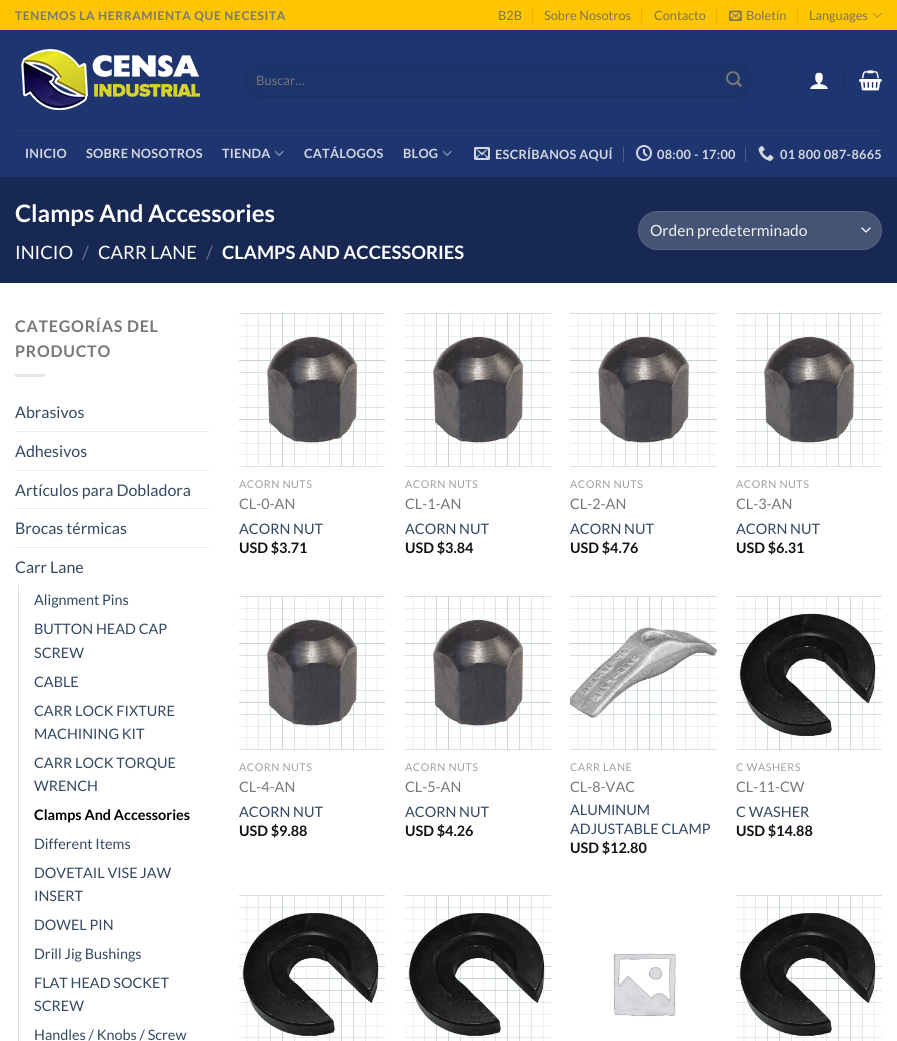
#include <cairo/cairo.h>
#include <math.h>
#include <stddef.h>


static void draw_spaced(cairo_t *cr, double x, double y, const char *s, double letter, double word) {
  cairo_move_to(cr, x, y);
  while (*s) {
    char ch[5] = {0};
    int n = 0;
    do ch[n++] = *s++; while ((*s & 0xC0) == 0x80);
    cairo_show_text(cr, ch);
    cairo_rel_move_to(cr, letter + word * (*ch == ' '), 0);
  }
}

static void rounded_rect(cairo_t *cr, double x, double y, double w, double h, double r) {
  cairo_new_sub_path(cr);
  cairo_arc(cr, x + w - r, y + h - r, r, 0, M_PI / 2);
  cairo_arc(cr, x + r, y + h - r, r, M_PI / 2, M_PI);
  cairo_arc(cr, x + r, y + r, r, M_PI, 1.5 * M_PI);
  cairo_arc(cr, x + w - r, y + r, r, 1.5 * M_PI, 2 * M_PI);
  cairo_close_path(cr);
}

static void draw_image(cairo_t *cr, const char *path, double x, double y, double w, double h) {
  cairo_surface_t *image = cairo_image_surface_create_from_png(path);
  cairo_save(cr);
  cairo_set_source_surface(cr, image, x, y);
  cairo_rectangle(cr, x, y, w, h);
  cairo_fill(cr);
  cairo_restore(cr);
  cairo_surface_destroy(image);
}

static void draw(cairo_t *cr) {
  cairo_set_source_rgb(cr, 1, 1, 1);
  cairo_paint(cr);
  cairo_set_source_rgb(cr, 254 / 255.0, 198 / 255.0, 1 / 255.0);
  cairo_rectangle(cr, 0, 0, 897, 30);
  cairo_fill(cr);
  cairo_set_source_rgb(cr, 229 / 255.0, 178 / 255.0, 1 / 255.0);
  cairo_rectangle(cr, 532, 8, 1, 15);
  cairo_fill(cr);
  cairo_rectangle(cr, 641, 8, 1, 15);
  cairo_fill(cr);
  cairo_rectangle(cr, 716, 8, 1, 15);
  cairo_fill(cr);
  draw_image(cr, "images/1.png", 729, 10, 13, 11);
  cairo_rectangle(cr, 797, 8, 1, 15);
  cairo_fill(cr);
  draw_image(cr, "images/2.png", 872, 12, 10, 6);
  cairo_set_source_rgb(cr, 30 / 255.0, 53 / 255.0, 111 / 255.0);
  cairo_rectangle(cr, 0, 30, 897, 147);
  cairo_fill(cr);
  draw_image(cr, "images/3.png", 21, 49, 179, 61);
  cairo_set_source_rgb(cr, 29 / 255.0, 51 / 255.0, 108 / 255.0);
  rounded_rect(cr, 245.5, 64.5, 506, 32, 16);
  cairo_fill_preserve(cr);
  cairo_set_source_rgb(cr, 26 / 255.0, 46 / 255.0, 98 / 255.0);
  cairo_set_line_width(cr, 1);
  cairo_stroke(cr);
  draw_image(cr, "images/4.png", 726, 71, 16, 16);
  cairo_set_source_rgb(cr, 27 / 255.0, 48 / 255.0, 100 / 255.0);
  cairo_rectangle(cr, 793, 65, 1, 30);
  cairo_fill(cr);
  draw_image(cr, "images/5.png", 810, 72, 18, 17);
  cairo_rectangle(cr, 843, 65, 1, 30);
  cairo_fill(cr);
  draw_image(cr, "images/6.png", 859, 70, 23, 21);
  cairo_set_source_rgb(cr, 39 / 255.0, 60 / 255.0, 112 / 255.0);
  cairo_rectangle(cr, 15, 130, 867, 1);
  cairo_fill(cr);
  draw_image(cr, "images/7.png", 274, 150, 10, 6);
  draw_image(cr, "images/7.png", 442, 150, 10, 6);
  draw_image(cr, "images/8.png", 474, 147, 16, 13);
  cairo_set_source_rgb(cr, 75 / 255.0, 93 / 255.0, 140 / 255.0);
  cairo_rectangle(cr, 623, 147, 1, 15);
  cairo_fill(cr);
  draw_image(cr, "images/9.png", 636, 145, 16, 16);
  cairo_rectangle(cr, 745, 147, 1, 15);
  cairo_fill(cr);
  draw_image(cr, "images/10.png", 758, 146, 16, 15);
  cairo_set_source_rgb(cr, 23 / 255.0, 40 / 255.0, 83 / 255.0);
  cairo_rectangle(cr, 0, 177, 897, 106);
  cairo_fill(cr);
  cairo_set_source_rgb(cr, 69 / 255.0, 83 / 255.0, 117 / 255.0);
  rounded_rect(cr, 638, 211, 244, 39, 19.5);
  cairo_fill(cr);
  cairo_new_path(cr);
  cairo_move_to(cr, 862, 228);
  cairo_line_to(cr, 866, 232);
  cairo_line_to(cr, 870, 228);
  cairo_set_source_rgb(cr, 1, 1, 1);
  cairo_set_line_width(cr, 1.3);
  cairo_set_line_cap(cr, CAIRO_LINE_CAP_ROUND);
  cairo_set_line_join(cr, CAIRO_LINE_JOIN_ROUND);
  cairo_stroke(cr);
  rounded_rect(cr, 638.5, 211.5, 243, 38, 19);
  cairo_set_source_rgba(cr, 1, 1, 1, 0.09);
  cairo_set_line_width(cr, 1);
  cairo_set_line_cap(cr, CAIRO_LINE_CAP_BUTT);
  cairo_set_line_join(cr, CAIRO_LINE_JOIN_MITER);
  cairo_stroke(cr);
  cairo_set_source_rgb(cr, 230 / 255.0, 230 / 255.0, 230 / 255.0);
  cairo_rectangle(cr, 15, 374, 30, 3);
  cairo_fill(cr);
  cairo_set_source_rgb(cr, 236 / 255.0, 236 / 255.0, 236 / 255.0);
  cairo_rectangle(cr, 15, 431, 194, 1);
  cairo_fill(cr);
  cairo_rectangle(cr, 15, 470, 194, 1);
  cairo_fill(cr);
  cairo_rectangle(cr, 15, 508, 194, 1);
  cairo_fill(cr);
  cairo_rectangle(cr, 15, 547, 194, 1);
  cairo_fill(cr);
  cairo_set_source_rgb(cr, 221 / 255.0, 221 / 255.0, 221 / 255.0);
  cairo_rectangle(cr, 18, 585, 1, 456);
  cairo_fill(cr);
  draw_image(cr, "images/11.png", 239, 313, 146, 154);
  draw_image(cr, "images/11.png", 405, 313, 146, 154);
  draw_image(cr, "images/12.png", 570, 313, 147, 154);
  draw_image(cr, "images/11.png", 736, 313, 146, 154);
  draw_image(cr, "images/11.png", 239, 596, 146, 154);
  draw_image(cr, "images/11.png", 405, 596, 146, 154);
  draw_image(cr, "images/13.png", 570, 596, 147, 154);
  draw_image(cr, "images/14.png", 736, 596, 146, 154);
  draw_image(cr, "images/15.png", 239, 895, 146, 146);
  draw_image(cr, "images/15.png", 405, 895, 146, 146);
  draw_image(cr, "images/16.png", 613, 953, 63, 64);
  draw_image(cr, "images/15.png", 736, 895, 146, 146);
  cairo_select_font_face(cr, "Lato", CAIRO_FONT_SLANT_NORMAL, CAIRO_FONT_WEIGHT_BOLD);
  cairo_set_font_size(cr, 12);
  cairo_set_source_rgb(cr, 119 / 255.0, 119 / 255.0, 119 / 255.0);
  draw_spaced(cr, 15, 20, "TENEMOS LA HERRAMIENTA QUE NECESITA", 0.6, 0);
  cairo_select_font_face(cr, "Lato", CAIRO_FONT_SLANT_NORMAL, CAIRO_FONT_WEIGHT_NORMAL);
  cairo_set_font_size(cr, 12.75);
  cairo_set_source_rgb(cr, 125 / 255.0, 116 / 255.0, 87 / 255.0);
  cairo_move_to(cr, 498, 20);
  cairo_show_text(cr, "B2B");
  cairo_move_to(cr, 544, 20);
  cairo_show_text(cr, "Sobre Nosotros");
  cairo_move_to(cr, 654, 20);
  cairo_show_text(cr, "Contacto");
  cairo_move_to(cr, 746, 20);
  cairo_show_text(cr, "Boletín");
  cairo_move_to(cr, 809, 20);
  cairo_show_text(cr, "Languages");
  cairo_set_font_size(cr, 13);
  cairo_set_source_rgb(cr, 119 / 255.0, 119 / 255.0, 119 / 255.0);
  cairo_move_to(cr, 256, 85);
  cairo_show_text(cr, "Buscar…");
  cairo_select_font_face(cr, "Lato", CAIRO_FONT_SLANT_NORMAL, CAIRO_FONT_WEIGHT_BOLD);
  cairo_set_font_size(cr, 12.75);
  cairo_set_source_rgb(cr, 210 / 255.0, 215 / 255.0, 226 / 255.0);
  draw_spaced(cr, 25, 158, "INICIO", 0.25, 0);
  draw_spaced(cr, 86, 158, "SOBRE NOSOTROS", 0.25, 0);
  draw_spaced(cr, 222, 158, "TIENDA", 0.25, 0);
  draw_spaced(cr, 304, 158, "CATÁLOGOS", 0.25, 0);
  draw_spaced(cr, 403, 158, "BLOG", 0.25, 0);
  draw_spaced(cr, 495, 159, "ESCRÍBANOS AQUÍ", 0.25, 0);
  draw_spaced(cr, 657, 159, "08:00 - 17:00", 0.25, 0);
  draw_spaced(cr, 780, 159, "01 800 087-8665", 0.25, 0);
  cairo_set_font_size(cr, 24);
  cairo_set_source_rgb(cr, 1, 1, 1);
  cairo_move_to(cr, 15, 222);
  cairo_show_text(cr, "Clamps And Accessories");
  cairo_select_font_face(cr, "Lato", CAIRO_FONT_SLANT_NORMAL, CAIRO_FONT_WEIGHT_NORMAL);
  cairo_set_font_size(cr, 18.4);
  cairo_move_to(cr, 15, 259);
  cairo_show_text(cr, "INICIO");
  cairo_set_source_rgb(cr, 104 / 255.0, 115 / 255.0, 143 / 255.0);
  cairo_move_to(cr, 82, 259);
  cairo_show_text(cr, "/");
  cairo_set_source_rgb(cr, 1, 1, 1);
  cairo_move_to(cr, 98, 259);
  cairo_show_text(cr, "CARR LANE");
  cairo_set_source_rgb(cr, 104 / 255.0, 115 / 255.0, 143 / 255.0);
  cairo_move_to(cr, 206, 259);
  cairo_show_text(cr, "/");
  cairo_select_font_face(cr, "Lato", CAIRO_FONT_SLANT_NORMAL, CAIRO_FONT_WEIGHT_BOLD);
  cairo_set_source_rgb(cr, 1, 1, 1);
  cairo_move_to(cr, 222, 259);
  cairo_show_text(cr, "CLAMPS AND ACCESSORIES");
  cairo_select_font_face(cr, "Lato", CAIRO_FONT_SLANT_NORMAL, CAIRO_FONT_WEIGHT_NORMAL);
  cairo_set_font_size(cr, 15.5);
  cairo_set_source_rgb(cr, 241 / 255.0, 241 / 255.0, 241 / 255.0);
  cairo_move_to(cr, 650, 236);
  cairo_show_text(cr, "Orden predeterminado");
  cairo_select_font_face(cr, "Lato", CAIRO_FONT_SLANT_NORMAL, CAIRO_FONT_WEIGHT_BOLD);
  cairo_set_font_size(cr, 16);
  cairo_set_source_rgb(cr, 119 / 255.0, 119 / 255.0, 119 / 255.0);
  draw_spaced(cr, 15, 332, "CATEGORÍAS DEL", 0.75, 0);
  draw_spaced(cr, 15, 357, "PRODUCTO", 0.75, 0);
  cairo_select_font_face(cr, "Lato", CAIRO_FONT_SLANT_NORMAL, CAIRO_FONT_WEIGHT_NORMAL);
  cairo_set_source_rgb(cr, 51 / 255.0, 72 / 255.0, 98 / 255.0);
  cairo_move_to(cr, 15, 418);
  cairo_show_text(cr, "Abrasivos");
  cairo_move_to(cr, 15, 457);
  cairo_show_text(cr, "Adhesivos");
  cairo_move_to(cr, 15, 496);
  cairo_show_text(cr, "Artículos para Dobladora");
  cairo_move_to(cr, 15, 534);
  cairo_show_text(cr, "Brocas térmicas");
  cairo_move_to(cr, 15, 573);
  cairo_show_text(cr, "Carr Lane");
  cairo_set_font_size(cr, 14.4);
  cairo_move_to(cr, 34, 605);
  cairo_show_text(cr, "Alignment Pins");
  cairo_move_to(cr, 34, 634);
  cairo_show_text(cr, "BUTTON HEAD CAP");
  cairo_move_to(cr, 34, 658);
  cairo_show_text(cr, "SCREW");
  cairo_move_to(cr, 34, 687);
  cairo_show_text(cr, "CABLE");
  cairo_move_to(cr, 34, 716);
  cairo_show_text(cr, "CARR LOCK FIXTURE");
  cairo_move_to(cr, 34, 739);
  cairo_show_text(cr, "MACHINING KIT");
  cairo_move_to(cr, 34, 768);
  cairo_show_text(cr, "CARR LOCK TORQUE");
  cairo_move_to(cr, 34, 791);
  cairo_show_text(cr, "WRENCH");
  cairo_select_font_face(cr, "Lato", CAIRO_FONT_SLANT_NORMAL, CAIRO_FONT_WEIGHT_BOLD);
  cairo_set_source_rgb(cr, 0, 0, 0);
  cairo_move_to(cr, 34, 820);
  cairo_show_text(cr, "Clamps And Accessories");
  cairo_select_font_face(cr, "Lato", CAIRO_FONT_SLANT_NORMAL, CAIRO_FONT_WEIGHT_NORMAL);
  cairo_set_source_rgb(cr, 51 / 255.0, 72 / 255.0, 98 / 255.0);
  cairo_move_to(cr, 34, 849);
  cairo_show_text(cr, "Different Items");
  cairo_move_to(cr, 34, 878);
  cairo_show_text(cr, "DOVETAIL VISE JAW");
  cairo_move_to(cr, 34, 901);
  cairo_show_text(cr, "INSERT");
  cairo_move_to(cr, 34, 930);
  cairo_show_text(cr, "DOWEL PIN");
  cairo_move_to(cr, 34, 959);
  cairo_show_text(cr, "Drill Jig Bushings");
  cairo_move_to(cr, 34, 988);
  cairo_show_text(cr, "FLAT HEAD SOCKET");
  cairo_move_to(cr, 34, 1011);
  cairo_show_text(cr, "SCREW");
  cairo_move_to(cr, 34, 1040);
  cairo_show_text(cr, "Handles / Knobs / Screw");
  cairo_set_font_size(cr, 10.75);
  cairo_set_source_rgb(cr, 160 / 255.0, 160 / 255.0, 160 / 255.0);
  draw_spaced(cr, 239, 488, "ACORN NUTS", 0.5, 0);
  cairo_set_font_size(cr, 14.4);
  cairo_set_source_rgb(cr, 119 / 255.0, 119 / 255.0, 119 / 255.0);
  cairo_move_to(cr, 239, 509);
  cairo_show_text(cr, "CL-0-AN");
  cairo_set_source_rgb(cr, 51 / 255.0, 72 / 255.0, 98 / 255.0);
  cairo_move_to(cr, 239, 534);
  cairo_show_text(cr, "ACORN NUT");
  cairo_select_font_face(cr, "Lato", CAIRO_FONT_SLANT_NORMAL, CAIRO_FONT_WEIGHT_BOLD);
  cairo_set_source_rgb(cr, 17 / 255.0, 17 / 255.0, 17 / 255.0);
  cairo_move_to(cr, 239, 553);
  cairo_show_text(cr, "USD $3.71");
  cairo_select_font_face(cr, "Lato", CAIRO_FONT_SLANT_NORMAL, CAIRO_FONT_WEIGHT_NORMAL);
  cairo_set_font_size(cr, 10.75);
  cairo_set_source_rgb(cr, 160 / 255.0, 160 / 255.0, 160 / 255.0);
  draw_spaced(cr, 405, 488, "ACORN NUTS", 0.5, 0);
  cairo_set_font_size(cr, 14.4);
  cairo_set_source_rgb(cr, 119 / 255.0, 119 / 255.0, 119 / 255.0);
  cairo_move_to(cr, 405, 509);
  cairo_show_text(cr, "CL-1-AN");
  cairo_set_source_rgb(cr, 51 / 255.0, 72 / 255.0, 98 / 255.0);
  cairo_move_to(cr, 405, 534);
  cairo_show_text(cr, "ACORN NUT");
  cairo_select_font_face(cr, "Lato", CAIRO_FONT_SLANT_NORMAL, CAIRO_FONT_WEIGHT_BOLD);
  cairo_set_source_rgb(cr, 17 / 255.0, 17 / 255.0, 17 / 255.0);
  cairo_move_to(cr, 405, 553);
  cairo_show_text(cr, "USD $3.84");
  cairo_select_font_face(cr, "Lato", CAIRO_FONT_SLANT_NORMAL, CAIRO_FONT_WEIGHT_NORMAL);
  cairo_set_font_size(cr, 10.75);
  cairo_set_source_rgb(cr, 160 / 255.0, 160 / 255.0, 160 / 255.0);
  draw_spaced(cr, 570, 488, "ACORN NUTS", 0.5, 0);
  cairo_set_font_size(cr, 14.4);
  cairo_set_source_rgb(cr, 119 / 255.0, 119 / 255.0, 119 / 255.0);
  cairo_move_to(cr, 570, 509);
  cairo_show_text(cr, "CL-2-AN");
  cairo_set_source_rgb(cr, 51 / 255.0, 72 / 255.0, 98 / 255.0);
  cairo_move_to(cr, 570, 534);
  cairo_show_text(cr, "ACORN NUT");
  cairo_select_font_face(cr, "Lato", CAIRO_FONT_SLANT_NORMAL, CAIRO_FONT_WEIGHT_BOLD);
  cairo_set_source_rgb(cr, 17 / 255.0, 17 / 255.0, 17 / 255.0);
  cairo_move_to(cr, 570, 553);
  cairo_show_text(cr, "USD $4.76");
  cairo_select_font_face(cr, "Lato", CAIRO_FONT_SLANT_NORMAL, CAIRO_FONT_WEIGHT_NORMAL);
  cairo_set_font_size(cr, 10.75);
  cairo_set_source_rgb(cr, 160 / 255.0, 160 / 255.0, 160 / 255.0);
  draw_spaced(cr, 736, 488, "ACORN NUTS", 0.5, 0);
  cairo_set_font_size(cr, 14.4);
  cairo_set_source_rgb(cr, 119 / 255.0, 119 / 255.0, 119 / 255.0);
  cairo_move_to(cr, 736, 509);
  cairo_show_text(cr, "CL-3-AN");
  cairo_set_source_rgb(cr, 51 / 255.0, 72 / 255.0, 98 / 255.0);
  cairo_move_to(cr, 736, 534);
  cairo_show_text(cr, "ACORN NUT");
  cairo_select_font_face(cr, "Lato", CAIRO_FONT_SLANT_NORMAL, CAIRO_FONT_WEIGHT_BOLD);
  cairo_set_source_rgb(cr, 17 / 255.0, 17 / 255.0, 17 / 255.0);
  cairo_move_to(cr, 736, 553);
  cairo_show_text(cr, "USD $6.31");
  cairo_select_font_face(cr, "Lato", CAIRO_FONT_SLANT_NORMAL, CAIRO_FONT_WEIGHT_NORMAL);
  cairo_set_font_size(cr, 10.75);
  cairo_set_source_rgb(cr, 160 / 255.0, 160 / 255.0, 160 / 255.0);
  draw_spaced(cr, 239, 771, "ACORN NUTS", 0.5, 0);
  cairo_set_font_size(cr, 14.4);
  cairo_set_source_rgb(cr, 119 / 255.0, 119 / 255.0, 119 / 255.0);
  cairo_move_to(cr, 239, 792);
  cairo_show_text(cr, "CL-4-AN");
  cairo_set_source_rgb(cr, 51 / 255.0, 72 / 255.0, 98 / 255.0);
  cairo_move_to(cr, 239, 817);
  cairo_show_text(cr, "ACORN NUT");
  cairo_select_font_face(cr, "Lato", CAIRO_FONT_SLANT_NORMAL, CAIRO_FONT_WEIGHT_BOLD);
  cairo_set_source_rgb(cr, 17 / 255.0, 17 / 255.0, 17 / 255.0);
  cairo_move_to(cr, 239, 836);
  cairo_show_text(cr, "USD $9.88");
  cairo_select_font_face(cr, "Lato", CAIRO_FONT_SLANT_NORMAL, CAIRO_FONT_WEIGHT_NORMAL);
  cairo_set_font_size(cr, 10.75);
  cairo_set_source_rgb(cr, 160 / 255.0, 160 / 255.0, 160 / 255.0);
  draw_spaced(cr, 405, 771, "ACORN NUTS", 0.5, 0);
  cairo_set_font_size(cr, 14.4);
  cairo_set_source_rgb(cr, 119 / 255.0, 119 / 255.0, 119 / 255.0);
  cairo_move_to(cr, 405, 792);
  cairo_show_text(cr, "CL-5-AN");
  cairo_set_source_rgb(cr, 51 / 255.0, 72 / 255.0, 98 / 255.0);
  cairo_move_to(cr, 405, 817);
  cairo_show_text(cr, "ACORN NUT");
  cairo_select_font_face(cr, "Lato", CAIRO_FONT_SLANT_NORMAL, CAIRO_FONT_WEIGHT_BOLD);
  cairo_set_source_rgb(cr, 17 / 255.0, 17 / 255.0, 17 / 255.0);
  cairo_move_to(cr, 405, 836);
  cairo_show_text(cr, "USD $4.26");
  cairo_select_font_face(cr, "Lato", CAIRO_FONT_SLANT_NORMAL, CAIRO_FONT_WEIGHT_NORMAL);
  cairo_set_font_size(cr, 10.75);
  cairo_set_source_rgb(cr, 160 / 255.0, 160 / 255.0, 160 / 255.0);
  draw_spaced(cr, 570, 771, "CARR LANE", 0.5, 0);
  cairo_set_font_size(cr, 14.4);
  cairo_set_source_rgb(cr, 119 / 255.0, 119 / 255.0, 119 / 255.0);
  cairo_move_to(cr, 570, 792);
  cairo_show_text(cr, "CL-8-VAC");
  cairo_set_source_rgb(cr, 51 / 255.0, 72 / 255.0, 98 / 255.0);
  cairo_move_to(cr, 570, 815);
  cairo_show_text(cr, "ALUMINUM");
  cairo_move_to(cr, 570, 834);
  cairo_show_text(cr, "ADJUSTABLE CLAMP");
  cairo_select_font_face(cr, "Lato", CAIRO_FONT_SLANT_NORMAL, CAIRO_FONT_WEIGHT_BOLD);
  cairo_set_source_rgb(cr, 17 / 255.0, 17 / 255.0, 17 / 255.0);
  cairo_move_to(cr, 570, 853);
  cairo_show_text(cr, "USD $12.80");
  cairo_select_font_face(cr, "Lato", CAIRO_FONT_SLANT_NORMAL, CAIRO_FONT_WEIGHT_NORMAL);
  cairo_set_font_size(cr, 10.75);
  cairo_set_source_rgb(cr, 160 / 255.0, 160 / 255.0, 160 / 255.0);
  draw_spaced(cr, 736, 771, "C WASHERS", 0.5, 0);
  cairo_set_font_size(cr, 14.4);
  cairo_set_source_rgb(cr, 119 / 255.0, 119 / 255.0, 119 / 255.0);
  cairo_move_to(cr, 736, 792);
  cairo_show_text(cr, "CL-11-CW");
  cairo_set_source_rgb(cr, 51 / 255.0, 72 / 255.0, 98 / 255.0);
  cairo_move_to(cr, 736, 817);
  cairo_show_text(cr, "C WASHER");
  cairo_select_font_face(cr, "Lato", CAIRO_FONT_SLANT_NORMAL, CAIRO_FONT_WEIGHT_BOLD);
  cairo_set_source_rgb(cr, 17 / 255.0, 17 / 255.0, 17 / 255.0);
  cairo_move_to(cr, 736, 836);
  cairo_show_text(cr, "USD $14.88");
}

int main(void) {
  cairo_surface_t *surface = cairo_image_surface_create(CAIRO_FORMAT_RGB24, 897, 1041);
  cairo_t *cr = cairo_create(surface);
  cairo_font_options_t *options = cairo_font_options_create();
  cairo_font_options_set_hint_metrics(options, CAIRO_HINT_METRICS_OFF);
  cairo_font_options_set_hint_style(options, CAIRO_HINT_STYLE_NONE);
  cairo_set_font_options(cr, options);
  cairo_set_miter_limit(cr, 4);
  draw(cr);
  cairo_surface_write_to_png(surface, "out.png");
  cairo_font_options_destroy(options);
  cairo_destroy(cr);
  cairo_surface_destroy(surface);
  return 0;
}
